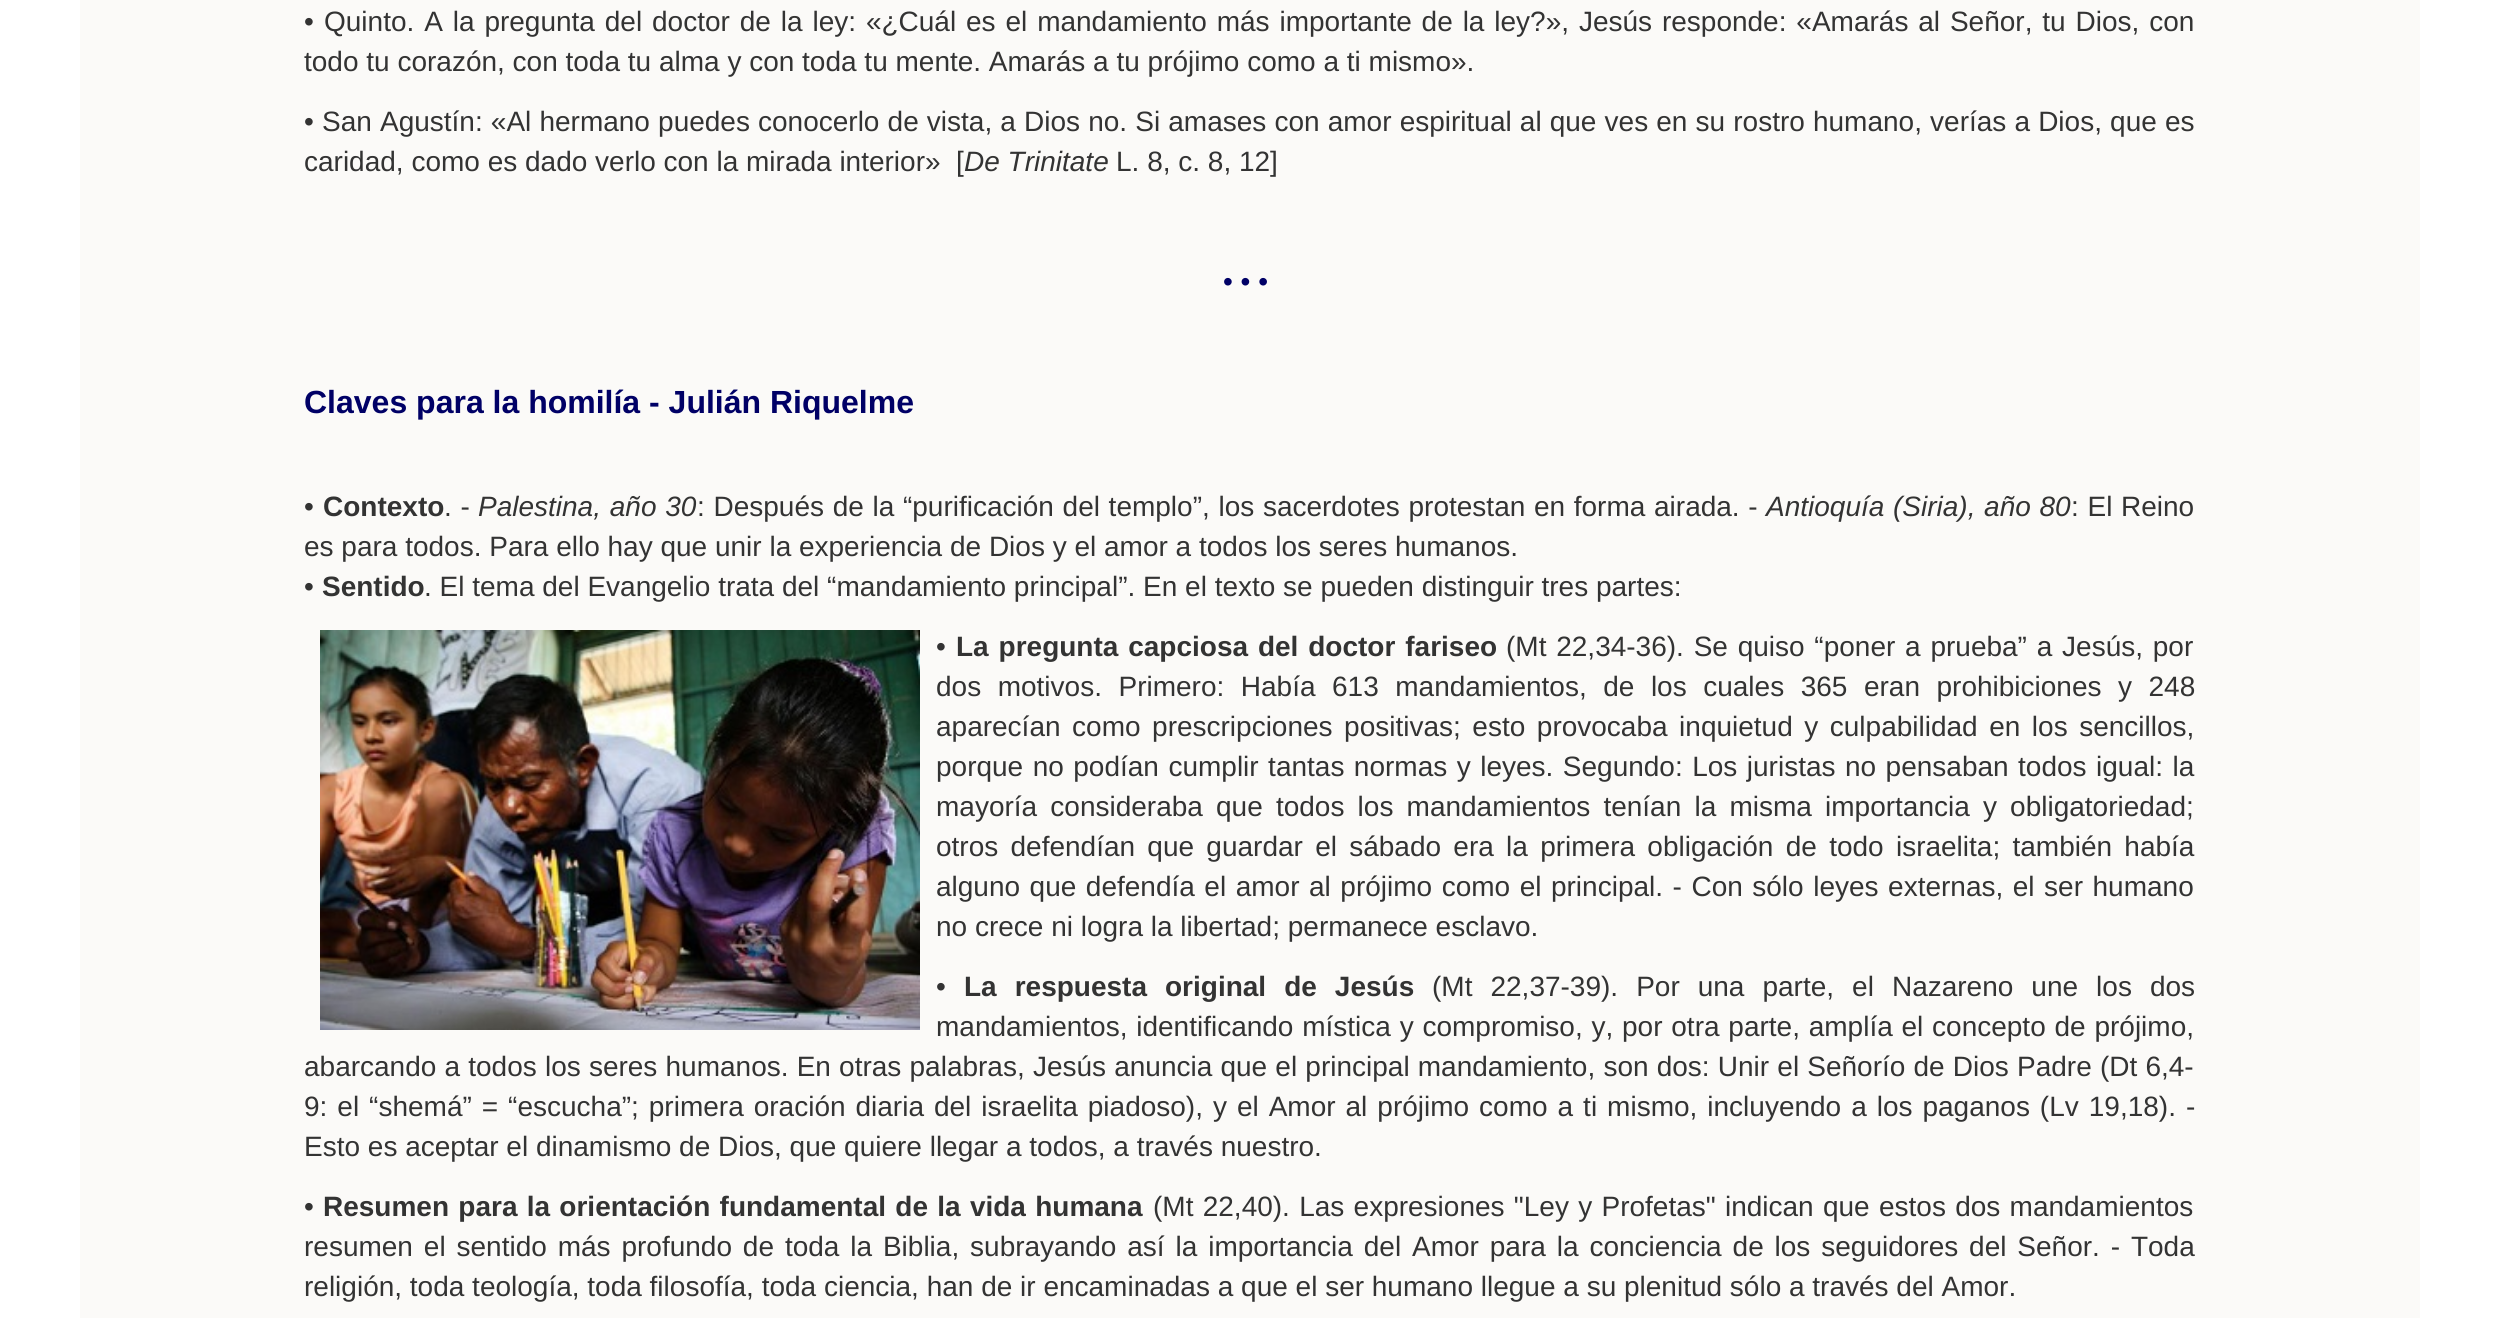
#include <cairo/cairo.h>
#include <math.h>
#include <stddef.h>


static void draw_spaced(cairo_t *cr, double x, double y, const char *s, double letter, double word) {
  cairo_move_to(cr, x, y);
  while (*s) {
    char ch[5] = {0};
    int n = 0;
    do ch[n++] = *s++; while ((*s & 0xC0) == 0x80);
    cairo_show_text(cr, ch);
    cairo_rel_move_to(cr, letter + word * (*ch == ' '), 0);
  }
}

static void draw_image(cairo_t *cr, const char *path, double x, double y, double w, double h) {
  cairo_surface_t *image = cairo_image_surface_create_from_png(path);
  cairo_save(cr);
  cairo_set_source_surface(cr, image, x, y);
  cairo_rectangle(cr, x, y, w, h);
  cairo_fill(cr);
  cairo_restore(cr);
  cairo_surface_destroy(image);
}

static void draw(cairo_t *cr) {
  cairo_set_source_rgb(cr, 1, 1, 1);
  cairo_paint(cr);
  cairo_set_source_rgb(cr, 251 / 255.0, 250 / 255.0, 248 / 255.0);
  cairo_rectangle(cr, 80, 0, 2340, 1318);
  cairo_fill(cr);
  draw_image(cr, "images/1.png", 320, 630, 600, 400);
  cairo_select_font_face(cr, "Liberation Sans", CAIRO_FONT_SLANT_NORMAL, CAIRO_FONT_WEIGHT_NORMAL);
  cairo_set_font_size(cr, 28);
  cairo_set_source_rgb(cr, 51 / 255.0, 51 / 255.0, 51 / 255.0);
  cairo_move_to(cr, 304, 31);
  cairo_show_text(cr, "•");
  draw_spaced(cr, 324, 31, "Quinto. A la pregunta del doctor de la ley: «¿Cuál es el mandamiento más importante de la ley?», Jesús responde: «Amarás al Señor, tu Dios, con", 0, 2.1);
  cairo_move_to(cr, 304, 71);
  cairo_show_text(cr, "todo tu corazón, con toda tu alma y con toda tu mente. Amarás a tu prójimo como a ti mismo».");
  cairo_move_to(cr, 304, 131);
  cairo_show_text(cr, "•");
  draw_spaced(cr, 322, 131, "San Agustín: «Al hermano puedes conocerlo de vista, a Dios no. Si amases con amor espiritual al que ves en su rostro humano, verías a Dios, que es", 0, 0.35);
  cairo_move_to(cr, 304, 171);
  cairo_show_text(cr, "caridad, como es dado verlo con la mirada interior»  [");
  cairo_select_font_face(cr, "Liberation Sans", CAIRO_FONT_SLANT_ITALIC, CAIRO_FONT_WEIGHT_NORMAL);
  cairo_move_to(cr, 964, 171);
  cairo_show_text(cr, "De Trinitate");
  cairo_select_font_face(cr, "Liberation Sans", CAIRO_FONT_SLANT_NORMAL, CAIRO_FONT_WEIGHT_NORMAL);
  cairo_move_to(cr, 1116, 171);
  cairo_show_text(cr, "L. 8, c. 8, 12]");
  cairo_set_source_rgb(cr, 0, 0, 102 / 255.0);
  cairo_move_to(cr, 1223, 291);
  cairo_show_text(cr, "• • •");
  cairo_select_font_face(cr, "Liberation Sans", CAIRO_FONT_SLANT_NORMAL, CAIRO_FONT_WEIGHT_BOLD);
  cairo_set_font_size(cr, 32);
  cairo_move_to(cr, 304, 413);
  cairo_show_text(cr, "Claves para la homilía - Julián Riquelme");
  cairo_select_font_face(cr, "Liberation Sans", CAIRO_FONT_SLANT_NORMAL, CAIRO_FONT_WEIGHT_NORMAL);
  cairo_set_font_size(cr, 28);
  cairo_set_source_rgb(cr, 51 / 255.0, 51 / 255.0, 51 / 255.0);
  cairo_move_to(cr, 304, 516);
  cairo_show_text(cr, "•");
  cairo_select_font_face(cr, "Liberation Sans", CAIRO_FONT_SLANT_NORMAL, CAIRO_FONT_WEIGHT_BOLD);
  cairo_move_to(cr, 323, 516);
  cairo_show_text(cr, "Contexto");
  cairo_select_font_face(cr, "Liberation Sans", CAIRO_FONT_SLANT_NORMAL, CAIRO_FONT_WEIGHT_NORMAL);
  draw_spaced(cr, 444, 516, ". -", 0, 1);
  cairo_select_font_face(cr, "Liberation Sans", CAIRO_FONT_SLANT_ITALIC, CAIRO_FONT_WEIGHT_NORMAL);
  draw_spaced(cr, 478, 516, "Palestina, año 30", 0, 1);
  cairo_select_font_face(cr, "Liberation Sans", CAIRO_FONT_SLANT_NORMAL, CAIRO_FONT_WEIGHT_NORMAL);
  draw_spaced(cr, 697, 516, ": Después de la “purificación del templo”, los sacerdotes protestan en forma airada. -", 0, 0.9);
  cairo_select_font_face(cr, "Liberation Sans", CAIRO_FONT_SLANT_ITALIC, CAIRO_FONT_WEIGHT_NORMAL);
  draw_spaced(cr, 1766, 516, "Antioquía (Siria), año 80", 0, 0.9);
  cairo_select_font_face(cr, "Liberation Sans", CAIRO_FONT_SLANT_NORMAL, CAIRO_FONT_WEIGHT_NORMAL);
  draw_spaced(cr, 2071, 516, ": El Reino", 0, 0.9);
  cairo_move_to(cr, 304, 556);
  cairo_show_text(cr, "es para todos. Para ello hay que unir la experiencia de Dios y el amor a todos los seres humanos.");
  cairo_move_to(cr, 304, 596);
  cairo_show_text(cr, "•");
  cairo_select_font_face(cr, "Liberation Sans", CAIRO_FONT_SLANT_NORMAL, CAIRO_FONT_WEIGHT_BOLD);
  cairo_move_to(cr, 322, 596);
  cairo_show_text(cr, "Sentido");
  cairo_select_font_face(cr, "Liberation Sans", CAIRO_FONT_SLANT_NORMAL, CAIRO_FONT_WEIGHT_NORMAL);
  cairo_move_to(cr, 424, 596);
  cairo_show_text(cr, ". El tema del Evangelio trata del “mandamiento principal”. En el texto se pueden distinguir tres partes:");
  cairo_move_to(cr, 936, 656);
  cairo_show_text(cr, "•");
  cairo_select_font_face(cr, "Liberation Sans", CAIRO_FONT_SLANT_NORMAL, CAIRO_FONT_WEIGHT_BOLD);
  draw_spaced(cr, 956, 656, "La pregunta capciosa del doctor fariseo", 0, 2.1);
  cairo_select_font_face(cr, "Liberation Sans", CAIRO_FONT_SLANT_NORMAL, CAIRO_FONT_WEIGHT_NORMAL);
  draw_spaced(cr, 1506, 656, "(Mt 22,34-36). Se quiso “poner a prueba” a Jesús, por", 0, 2);
  draw_spaced(cr, 936, 696, "dos motivos. Primero: Había 613 mandamientos, de los cuales 365 eran prohibiciones y 248", 0, 8.75);
  draw_spaced(cr, 936, 736, "aparecían como prescripciones positivas; esto provocaba inquietud y culpabilidad en los sencillos,", 0, 3.75);
  draw_spaced(cr, 936, 776, "porque no podían cumplir tantas normas y leyes. Segundo: Los juristas no pensaban todos igual: la", 0, 1.7);
  draw_spaced(cr, 936, 816, "mayoría consideraba que todos los mandamientos tenían la misma importancia y obligatoriedad;", 0, 5.4);
  draw_spaced(cr, 936, 856, "otros defendían que guardar el sábado era la primera obligación de todo israelita; también había", 0, 4.5);
  draw_spaced(cr, 936, 896, "alguno que defendía el amor al prójimo como el principal. - Con sólo leyes externas, el ser humano", 0, 1.75);
  cairo_move_to(cr, 936, 936);
  cairo_show_text(cr, "no crece ni logra la libertad; permanece esclavo.");
  cairo_move_to(cr, 936, 996);
  cairo_show_text(cr, "•");
  cairo_select_font_face(cr, "Liberation Sans", CAIRO_FONT_SLANT_NORMAL, CAIRO_FONT_WEIGHT_BOLD);
  draw_spaced(cr, 964, 996, "La respuesta original de Jesús", 0, 10.25);
  cairo_select_font_face(cr, "Liberation Sans", CAIRO_FONT_SLANT_NORMAL, CAIRO_FONT_WEIGHT_NORMAL);
  draw_spaced(cr, 1432, 996, "(Mt 22,37-39). Por una parte, el Nazareno une los dos", 0, 10.25);
  draw_spaced(cr, 936, 1036, "mandamientos, identificando mística y compromiso, y, por otra parte, amplía el concepto de prójimo,", 0, 1);
  draw_spaced(cr, 304, 1076, "abarcando a todos los seres humanos. En otras palabras, Jesús anuncia que el principal mandamiento, son dos: Unir el Señorío de Dios Padre (Dt 6,4-", 0, 0.4);
  draw_spaced(cr, 304, 1116, "9: el “shemá” = “escucha”; primera oración diaria del israelita piadoso), y el Amor al prójimo como a ti mismo, incluyendo a los paganos (Lv 19,18). -", 0, 2.2);
  cairo_move_to(cr, 304, 1156);
  cairo_show_text(cr, "Esto es aceptar el dinamismo de Dios, que quiere llegar a todos, a través nuestro.");
  cairo_move_to(cr, 304, 1216);
  cairo_show_text(cr, "•");
  cairo_select_font_face(cr, "Liberation Sans", CAIRO_FONT_SLANT_NORMAL, CAIRO_FONT_WEIGHT_BOLD);
  draw_spaced(cr, 323, 1216, "Resumen para la orientación fundamental de la vida humana", 0, 1.5);
  cairo_select_font_face(cr, "Liberation Sans", CAIRO_FONT_SLANT_NORMAL, CAIRO_FONT_WEIGHT_NORMAL);
  draw_spaced(cr, 1153, 1216, "(Mt 22,40). Las expresiones \"Ley y Profetas\" indican que estos dos mandamientos", 0, 1.5);
  draw_spaced(cr, 304, 1256, "resumen el sentido más profundo de toda la Biblia, subrayando así la importancia del Amor para la conciencia de los seguidores del Señor. - Toda", 0, 3.1);
  cairo_move_to(cr, 304, 1296);
  cairo_show_text(cr, "religión, toda teología, toda filosofía, toda ciencia, han de ir encaminadas a que el ser humano llegue a su plenitud sólo a través del Amor.");
}

int main(void) {
  cairo_surface_t *surface = cairo_image_surface_create(CAIRO_FORMAT_RGB24, 2498, 1318);
  cairo_t *cr = cairo_create(surface);
  cairo_font_options_t *options = cairo_font_options_create();
  cairo_font_options_set_hint_metrics(options, CAIRO_HINT_METRICS_OFF);
  cairo_font_options_set_hint_style(options, CAIRO_HINT_STYLE_NONE);
  cairo_set_font_options(cr, options);
  cairo_set_miter_limit(cr, 4);
  draw(cr);
  cairo_surface_write_to_png(surface, "out.png");
  cairo_font_options_destroy(options);
  cairo_destroy(cr);
  cairo_surface_destroy(surface);
  return 0;
}
